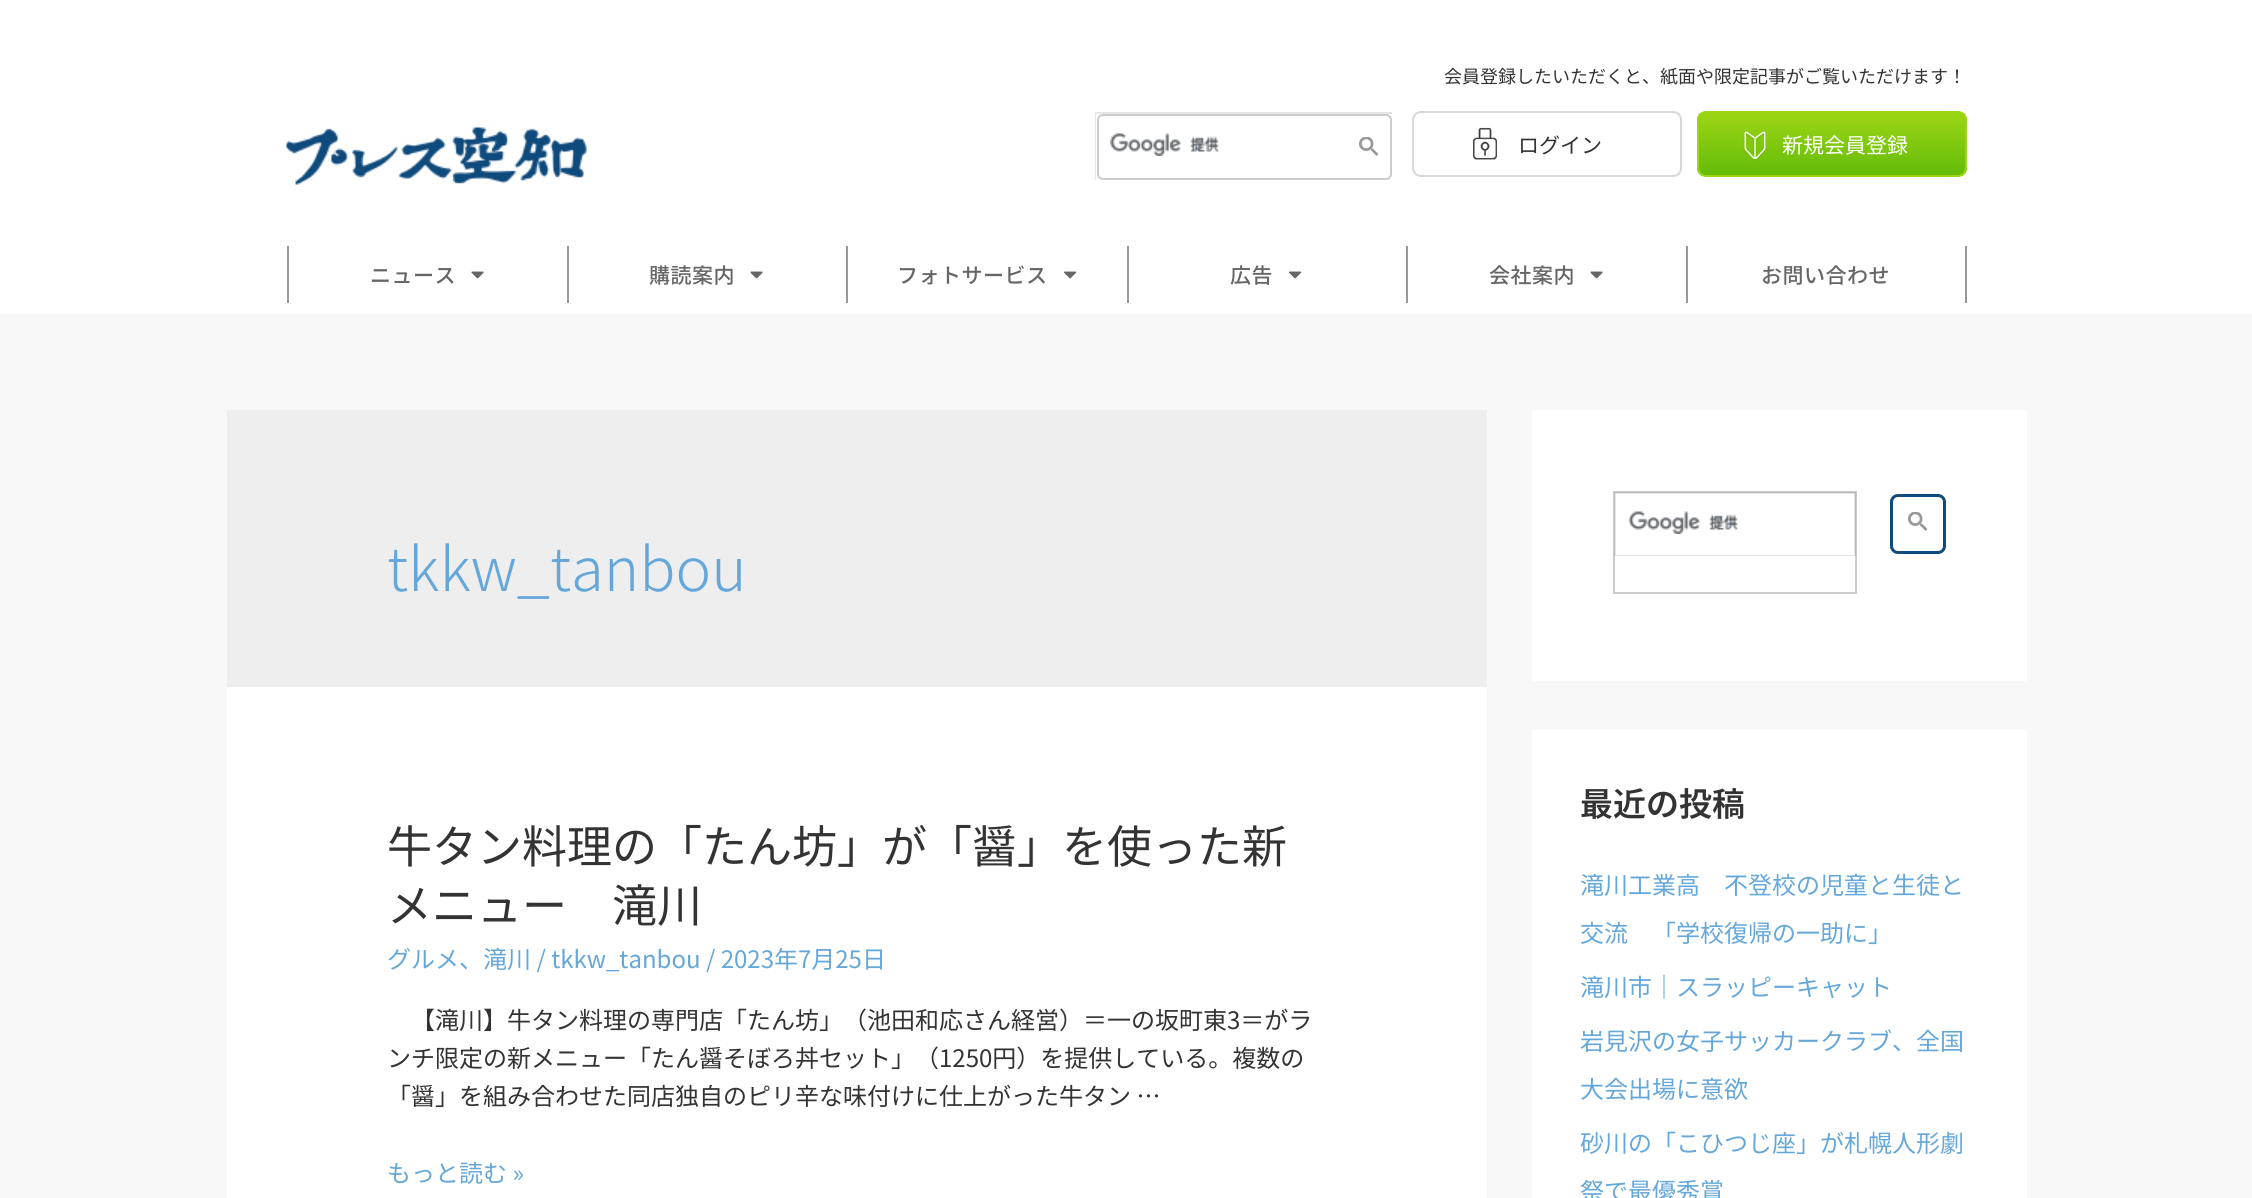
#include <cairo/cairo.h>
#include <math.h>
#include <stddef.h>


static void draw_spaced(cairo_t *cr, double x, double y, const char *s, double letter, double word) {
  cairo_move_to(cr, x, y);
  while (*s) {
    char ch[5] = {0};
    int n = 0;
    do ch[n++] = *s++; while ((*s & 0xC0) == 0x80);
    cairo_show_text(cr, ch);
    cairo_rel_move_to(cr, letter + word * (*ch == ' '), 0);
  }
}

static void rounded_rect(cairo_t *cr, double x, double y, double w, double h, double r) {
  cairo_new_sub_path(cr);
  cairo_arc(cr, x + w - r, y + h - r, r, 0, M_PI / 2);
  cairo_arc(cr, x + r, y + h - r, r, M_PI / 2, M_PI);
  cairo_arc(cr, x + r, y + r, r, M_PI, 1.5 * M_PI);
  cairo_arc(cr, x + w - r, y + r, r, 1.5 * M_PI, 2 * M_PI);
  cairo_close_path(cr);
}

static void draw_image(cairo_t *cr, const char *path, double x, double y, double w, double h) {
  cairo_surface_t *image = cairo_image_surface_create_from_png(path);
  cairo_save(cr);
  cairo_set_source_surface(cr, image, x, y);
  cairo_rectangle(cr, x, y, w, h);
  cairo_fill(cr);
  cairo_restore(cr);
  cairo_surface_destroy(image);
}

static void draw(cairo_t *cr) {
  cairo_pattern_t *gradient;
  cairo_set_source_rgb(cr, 248 / 255.0, 248 / 255.0, 248 / 255.0);
  cairo_paint(cr);
  cairo_set_source_rgb(cr, 1, 1, 1);
  cairo_rectangle(cr, 0, 0, 2252, 314);
  cairo_fill(cr);
  draw_image(cr, "images/1.png", 286, 127, 301, 58);
  cairo_set_source_rgb(cr, 230 / 255.0, 230 / 255.0, 230 / 255.0);
  cairo_new_path(cr);
  cairo_move_to(cr, 1095, 112);
  cairo_line_to(cr, 1392, 112);
  cairo_line_to(cr, 1392, 114);
  cairo_line_to(cr, 1096, 114);
  cairo_close_path(cr);
  cairo_fill(cr);
  cairo_set_source_rgba(cr, 0, 0, 0, 0.1);
  cairo_new_path(cr);
  cairo_move_to(cr, 1095, 180);
  cairo_line_to(cr, 1095, 112);
  cairo_line_to(cr, 1096, 114);
  cairo_line_to(cr, 1096, 180);
  cairo_close_path(cr);
  cairo_fill(cr);
  rounded_rect(cr, 1098, 115, 293, 64, 5);
  cairo_set_source_rgb(cr, 204 / 255.0, 204 / 255.0, 204 / 255.0);
  cairo_stroke(cr);
  draw_image(cr, "images/2.png", 1110, 133, 109, 23);
  draw_image(cr, "images/3.png", 1359, 137, 20, 19);
  rounded_rect(cr, 1413, 112, 268, 64, 8);
  cairo_set_source_rgb(cr, 216 / 255.0, 216 / 255.0, 216 / 255.0);
  cairo_stroke(cr);
  draw_image(cr, "images/4.png", 1473, 127, 24, 33);
  cairo_save(cr);
  rounded_rect(cr, 1697, 111, 270, 66, 9);
  cairo_clip(cr);
  gradient = cairo_pattern_create_linear(1832, 176, 1832, 113);
  cairo_pattern_add_color_stop_rgba(gradient, 0, 99 / 255.0, 187 / 255.0, 8 / 255.0, 1);
  cairo_pattern_add_color_stop_rgba(gradient, 1, 156 / 255.0, 214 / 255.0, 21 / 255.0, 1);
  cairo_set_source(cr, gradient);
  cairo_pattern_destroy(gradient);
  cairo_rectangle(cr, 1697, 113, 270, 63);
  cairo_fill(cr);
  cairo_restore(cr);
  rounded_rect(cr, 1698, 112, 268, 64, 8);
  cairo_set_source_rgb(cr, 156 / 255.0, 214 / 255.0, 21 / 255.0);
  cairo_stroke(cr);
  draw_image(cr, "images/5.png", 1743, 131, 24, 30);
  cairo_set_source_rgb(cr, 153 / 255.0, 153 / 255.0, 153 / 255.0);
  cairo_rectangle(cr, 287, 246, 2, 57);
  cairo_fill(cr);
  cairo_rectangle(cr, 567, 246, 2, 57);
  cairo_fill(cr);
  draw_image(cr, "images/6.png", 471, 271, 13, 8);
  cairo_rectangle(cr, 846, 246, 2, 57);
  cairo_fill(cr);
  draw_image(cr, "images/6.png", 750, 271, 13, 8);
  cairo_rectangle(cr, 1127, 246, 2, 57);
  cairo_fill(cr);
  draw_image(cr, "images/7.png", 1064, 271, 13, 8);
  cairo_rectangle(cr, 1406, 246, 2, 57);
  cairo_fill(cr);
  draw_image(cr, "images/7.png", 1289, 271, 13, 8);
  cairo_rectangle(cr, 1686, 246, 2, 57);
  cairo_fill(cr);
  draw_image(cr, "images/6.png", 1590, 271, 13, 8);
  cairo_rectangle(cr, 1965, 246, 2, 57);
  cairo_fill(cr);
  cairo_set_source_rgb(cr, 238 / 255.0, 238 / 255.0, 238 / 255.0);
  cairo_rectangle(cr, 227, 410, 1260, 277);
  cairo_fill(cr);
  cairo_set_source_rgb(cr, 1, 1, 1);
  cairo_rectangle(cr, 227, 687, 1260, 511);
  cairo_fill(cr);
  cairo_rectangle(cr, 1532, 410, 495, 271);
  cairo_fill(cr);
  cairo_rectangle(cr, 1614, 492, 242, 101);
  cairo_set_source_rgb(cr, 204 / 255.0, 204 / 255.0, 204 / 255.0);
  cairo_stroke(cr);
  cairo_set_source_rgba(cr, 0, 0, 0, 0.1);
  cairo_new_path(cr);
  cairo_move_to(cr, 1614, 492);
  cairo_line_to(cr, 1856, 492);
  cairo_line_to(cr, 1856, 494);
  cairo_line_to(cr, 1616, 494);
  cairo_close_path(cr);
  cairo_fill(cr);
  cairo_new_path(cr);
  cairo_move_to(cr, 1614, 556);
  cairo_line_to(cr, 1614, 492);
  cairo_line_to(cr, 1616, 494);
  cairo_line_to(cr, 1616, 556);
  cairo_close_path(cr);
  cairo_fill(cr);
  cairo_new_path(cr);
  cairo_move_to(cr, 1856, 494);
  cairo_line_to(cr, 1856, 556);
  cairo_line_to(cr, 1854, 555);
  cairo_line_to(cr, 1854, 494);
  cairo_close_path(cr);
  cairo_fill(cr);
  cairo_new_path(cr);
  cairo_move_to(cr, 1856, 556);
  cairo_line_to(cr, 1616, 556);
  cairo_line_to(cr, 1616, 555);
  cairo_line_to(cr, 1854, 555);
  cairo_close_path(cr);
  cairo_fill(cr);
  draw_image(cr, "images/8.png", 1629, 511, 109, 23);
  rounded_rect(cr, 1891.5, 495.5, 53, 57, 6.5);
  cairo_set_source_rgb(cr, 15 / 255.0, 74 / 255.0, 124 / 255.0);
  cairo_set_line_width(cr, 3);
  cairo_stroke(cr);
  draw_image(cr, "images/3.png", 1908, 512, 20, 19);
  cairo_set_source_rgb(cr, 1, 1, 1);
  cairo_rectangle(cr, 1532, 729, 495, 469);
  cairo_fill(cr);
  cairo_select_font_face(cr, "Noto Sans JP", CAIRO_FONT_SLANT_NORMAL, CAIRO_FONT_WEIGHT_NORMAL);
  cairo_set_font_size(cr, 18);
  cairo_set_source_rgb(cr, 51 / 255.0, 51 / 255.0, 51 / 255.0);
  cairo_move_to(cr, 1444, 83);
  cairo_show_text(cr, "会員登録したいただくと、紙面や限定記事がご覧いただけます！");
  cairo_set_font_size(cr, 21);
  cairo_move_to(cr, 1518, 153);
  cairo_show_text(cr, "ログイン");
  cairo_set_source_rgb(cr, 1, 1, 1);
  cairo_move_to(cr, 1782, 153);
  cairo_show_text(cr, "新規会員登録");
  cairo_select_font_face(cr, "Noto Sans JP Medium", CAIRO_FONT_SLANT_NORMAL, CAIRO_FONT_WEIGHT_NORMAL);
  cairo_set_source_rgb(cr, 102 / 255.0, 102 / 255.0, 102 / 255.0);
  draw_spaced(cr, 370, 283, "ニュース", 0.5, 0);
  draw_spaced(cr, 649, 283, "購読案内", 0.5, 0);
  draw_spaced(cr, 897, 283, "フォトサービス", 0.5, 0);
  draw_spaced(cr, 1230, 283, "広告", 0.5, 0);
  draw_spaced(cr, 1489, 283, "会社案内", 0.5, 0);
  draw_spaced(cr, 1761, 283, "お問い合わせ", 0.5, 0);
  cairo_select_font_face(cr, "Noto Sans JP Light", CAIRO_FONT_SLANT_NORMAL, CAIRO_FONT_WEIGHT_NORMAL);
  cairo_set_font_size(cr, 60);
  cairo_set_source_rgb(cr, 102 / 255.0, 167 / 255.0, 217 / 255.0);
  cairo_move_to(cr, 387, 591);
  cairo_show_text(cr, "tkkw_tanbou");
  cairo_select_font_face(cr, "Noto Sans JP", CAIRO_FONT_SLANT_NORMAL, CAIRO_FONT_WEIGHT_NORMAL);
  cairo_set_font_size(cr, 45);
  cairo_set_source_rgb(cr, 51 / 255.0, 51 / 255.0, 51 / 255.0);
  cairo_move_to(cr, 387, 863);
  cairo_show_text(cr, "牛タン料理の「たん坊」が「醤」を使った新");
  cairo_move_to(cr, 387, 922);
  cairo_show_text(cr, "メニュー　滝川");
  cairo_set_font_size(cr, 24);
  cairo_set_source_rgb(cr, 102 / 255.0, 167 / 255.0, 217 / 255.0);
  cairo_move_to(cr, 387, 968);
  cairo_show_text(cr, "グルメ、滝川 / tkkw_tanbou / 2023年7月25日");
  cairo_set_source_rgb(cr, 51 / 255.0, 51 / 255.0, 51 / 255.0);
  cairo_move_to(cr, 411, 1029);
  cairo_show_text(cr, "【滝川】牛タン料理の専門店「たん坊」（池田和応さん経営）＝一の坂町東3＝がラ");
  cairo_move_to(cr, 387, 1067);
  cairo_show_text(cr, "ンチ限定の新メニュー「たん醤そぼろ丼セット」（1250円）を提供している。複数の");
  cairo_move_to(cr, 387, 1105);
  cairo_show_text(cr, "「醤」を組み合わせた同店独自のピリ辛な味付けに仕上がった牛タン …");
  cairo_set_source_rgb(cr, 102 / 255.0, 167 / 255.0, 217 / 255.0);
  cairo_move_to(cr, 387, 1182);
  cairo_show_text(cr, "もっと読む »");
  cairo_select_font_face(cr, "Noto Sans JP SemiBold", CAIRO_FONT_SLANT_NORMAL, CAIRO_FONT_WEIGHT_NORMAL);
  cairo_set_font_size(cr, 33);
  cairo_set_source_rgb(cr, 51 / 255.0, 51 / 255.0, 51 / 255.0);
  cairo_move_to(cr, 1580, 816);
  cairo_show_text(cr, "最近の投稿");
  cairo_select_font_face(cr, "Noto Sans JP", CAIRO_FONT_SLANT_NORMAL, CAIRO_FONT_WEIGHT_NORMAL);
  cairo_set_font_size(cr, 24);
  cairo_set_source_rgb(cr, 102 / 255.0, 167 / 255.0, 217 / 255.0);
  cairo_move_to(cr, 1580, 894);
  cairo_show_text(cr, "滝川工業高　不登校の児童と生徒と");
  cairo_move_to(cr, 1580, 942);
  cairo_show_text(cr, "交流　「学校復帰の一助に」");
  cairo_move_to(cr, 1580, 996);
  cairo_show_text(cr, "滝川市｜スラッピーキャット");
  cairo_move_to(cr, 1580, 1050);
  cairo_show_text(cr, "岩見沢の女子サッカークラブ、全国");
  cairo_move_to(cr, 1580, 1098);
  cairo_show_text(cr, "大会出場に意欲");
  cairo_move_to(cr, 1580, 1152);
  cairo_show_text(cr, "砂川の「こひつじ座」が札幌人形劇");
  cairo_move_to(cr, 1580, 1200);
  cairo_show_text(cr, "祭で最優秀賞");
}

int main(void) {
  cairo_surface_t *surface = cairo_image_surface_create(CAIRO_FORMAT_RGB24, 2252, 1198);
  cairo_t *cr = cairo_create(surface);
  cairo_font_options_t *options = cairo_font_options_create();
  cairo_font_options_set_hint_metrics(options, CAIRO_HINT_METRICS_OFF);
  cairo_font_options_set_hint_style(options, CAIRO_HINT_STYLE_NONE);
  cairo_set_font_options(cr, options);
  cairo_set_miter_limit(cr, 4);
  draw(cr);
  cairo_surface_write_to_png(surface, "out.png");
  cairo_font_options_destroy(options);
  cairo_destroy(cr);
  cairo_surface_destroy(surface);
  return 0;
}
